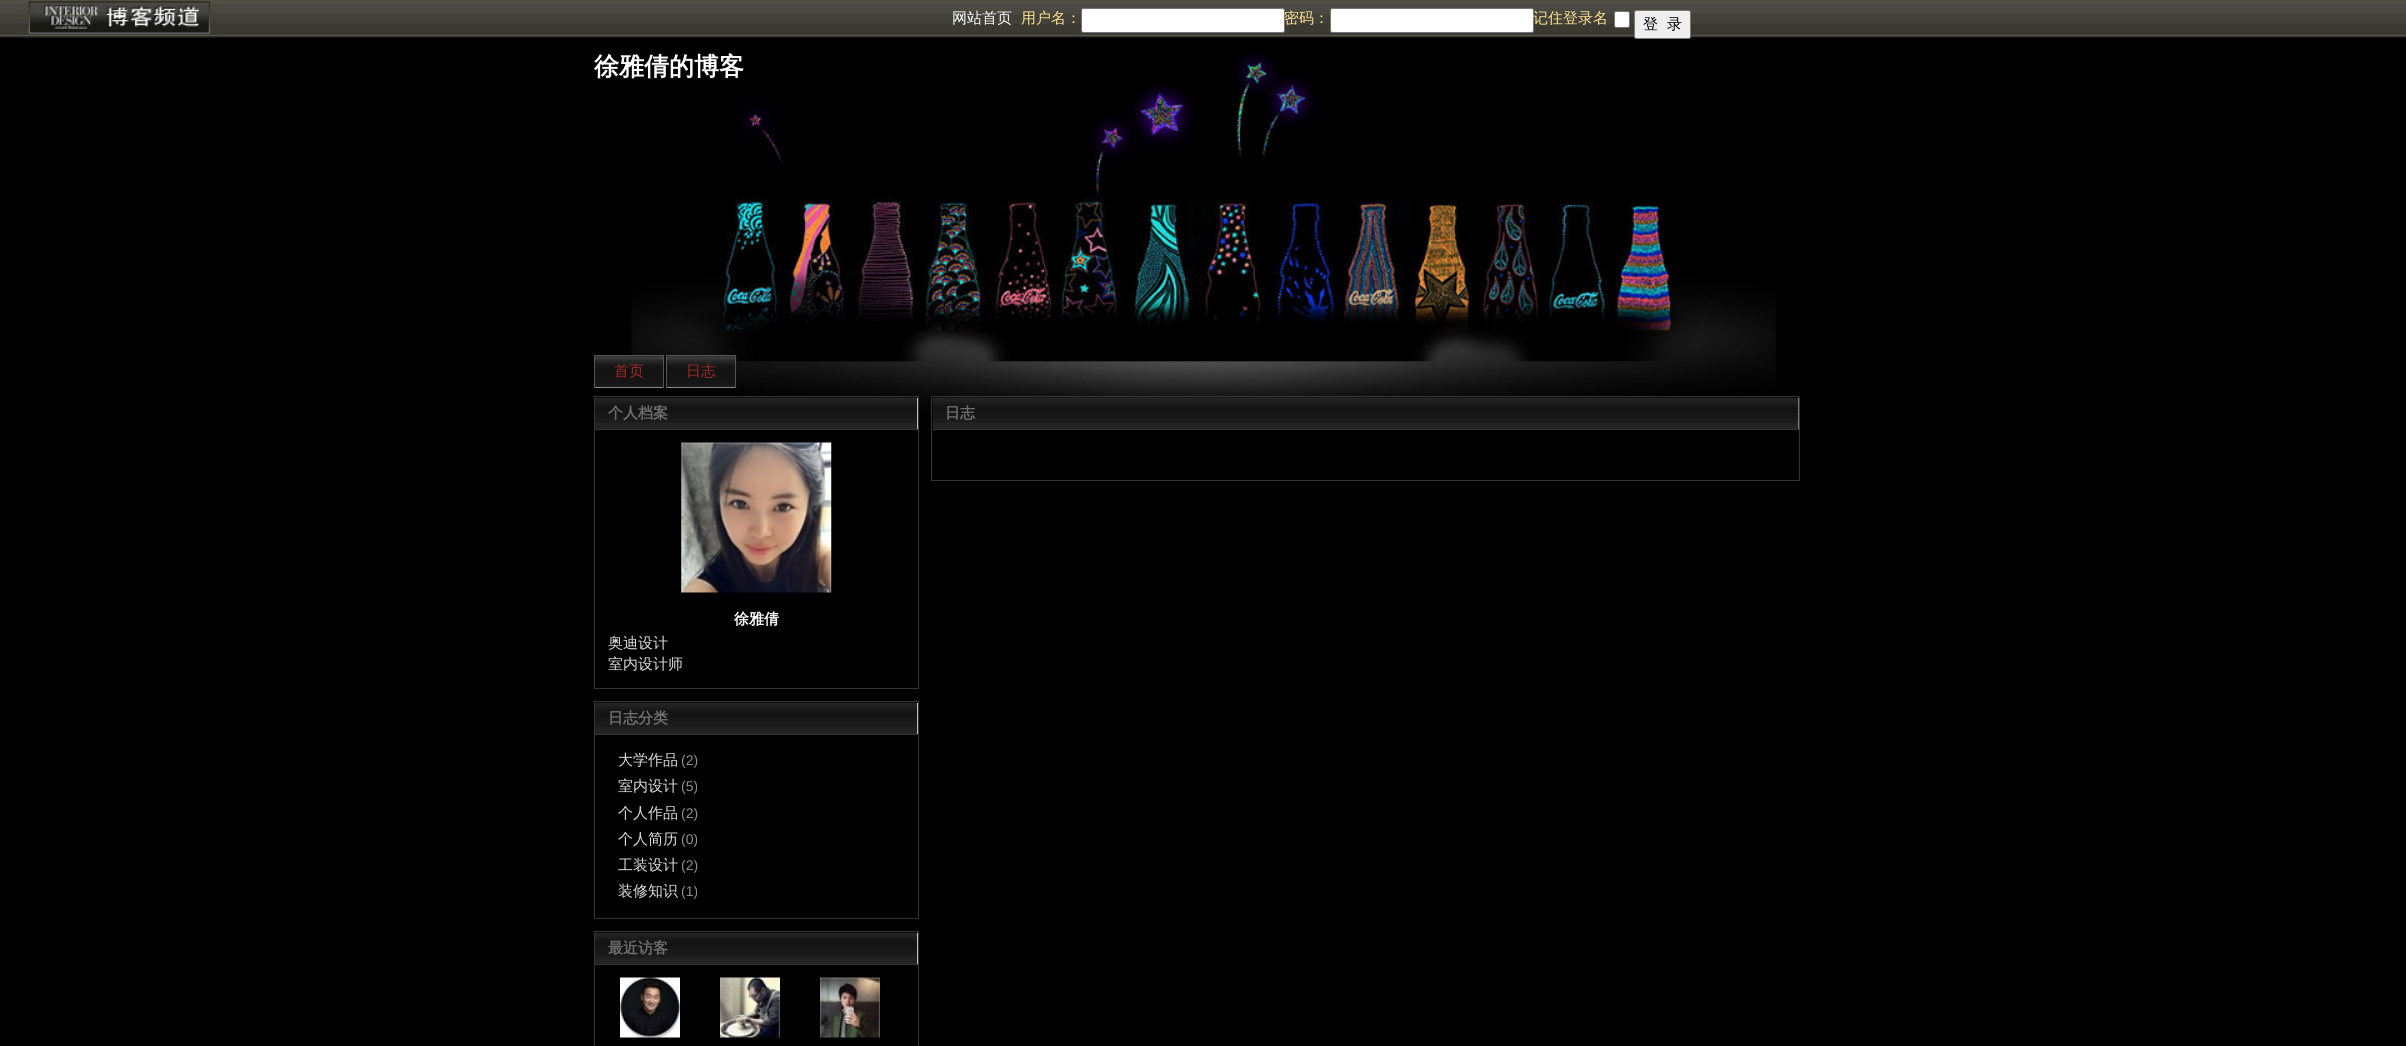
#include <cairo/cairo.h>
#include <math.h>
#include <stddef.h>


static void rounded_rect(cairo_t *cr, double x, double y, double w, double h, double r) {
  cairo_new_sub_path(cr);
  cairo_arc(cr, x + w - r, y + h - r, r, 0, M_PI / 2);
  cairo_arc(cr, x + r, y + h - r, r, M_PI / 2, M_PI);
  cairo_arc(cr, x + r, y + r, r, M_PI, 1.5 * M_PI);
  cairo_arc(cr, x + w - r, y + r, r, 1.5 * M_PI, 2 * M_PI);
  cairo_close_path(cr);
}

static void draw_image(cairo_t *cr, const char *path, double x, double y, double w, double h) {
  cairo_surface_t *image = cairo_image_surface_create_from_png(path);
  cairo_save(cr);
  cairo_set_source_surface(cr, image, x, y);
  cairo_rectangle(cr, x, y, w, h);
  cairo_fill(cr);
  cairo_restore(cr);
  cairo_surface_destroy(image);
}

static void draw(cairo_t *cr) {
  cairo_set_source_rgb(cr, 0, 0, 0);
  cairo_paint(cr);
  draw_image(cr, "images/1.png", 631, 53, 1145, 364);
  draw_image(cr, "images/2.png", 0, 0, 2406, 38);
  draw_image(cr, "images/3.png", 19, 0, 200, 38);
  cairo_set_source_rgb(cr, 1, 1, 1);
  rounded_rect(cr, 1081.5, 8.5, 203, 24, 2);
  cairo_fill_preserve(cr);
  cairo_set_source_rgb(cr, 118 / 255.0, 118 / 255.0, 118 / 255.0);
  cairo_set_line_width(cr, 1);
  cairo_stroke(cr);
  cairo_set_source_rgb(cr, 1, 1, 1);
  rounded_rect(cr, 1330.5, 8.5, 203, 24, 2);
  cairo_fill_preserve(cr);
  cairo_set_source_rgb(cr, 118 / 255.0, 118 / 255.0, 118 / 255.0);
  cairo_stroke(cr);
  cairo_set_source_rgb(cr, 1, 1, 1);
  rounded_rect(cr, 1614.5, 11.5, 15, 16, 2);
  cairo_fill_preserve(cr);
  cairo_set_source_rgb(cr, 118 / 255.0, 118 / 255.0, 118 / 255.0);
  cairo_stroke(cr);
  cairo_set_source_rgb(cr, 239 / 255.0, 239 / 255.0, 239 / 255.0);
  rounded_rect(cr, 1634.5, 10.5, 56, 28, 2);
  cairo_fill_preserve(cr);
  cairo_set_source_rgb(cr, 118 / 255.0, 118 / 255.0, 118 / 255.0);
  cairo_stroke(cr);
  cairo_set_source_rgb(cr, 238 / 255.0, 238 / 255.0, 238 / 255.0);
  cairo_rectangle(cr, 595, 387, 68, 1);
  cairo_fill(cr);
  draw_image(cr, "images/4.png", 593, 355, 70, 33);
  cairo_set_source_rgb(cr, 84 / 255.0, 85 / 255.0, 84 / 255.0);
  cairo_rectangle(cr, 594, 355, 70, 1);
  cairo_fill(cr);
  cairo_rectangle(cr, 663, 355, 1, 33);
  cairo_fill(cr);
  cairo_rectangle(cr, 594, 355, 1, 33);
  cairo_fill(cr);
  cairo_set_source_rgb(cr, 238 / 255.0, 238 / 255.0, 238 / 255.0);
  cairo_rectangle(cr, 667, 387, 68, 1);
  cairo_fill(cr);
  draw_image(cr, "images/5.png", 667, 355, 70, 33);
  cairo_set_source_rgb(cr, 84 / 255.0, 85 / 255.0, 84 / 255.0);
  cairo_rectangle(cr, 666, 355, 70, 1);
  cairo_fill(cr);
  cairo_rectangle(cr, 735, 355, 1, 33);
  cairo_fill(cr);
  cairo_rectangle(cr, 666, 355, 1, 33);
  cairo_fill(cr);
  cairo_rectangle(cr, 594.5, 396.5, 324, 292);
  cairo_set_source_rgb(cr, 52 / 255.0, 52 / 255.0, 52 / 255.0);
  cairo_stroke(cr);
  cairo_set_source_rgb(cr, 241 / 255.0, 241 / 255.0, 241 / 255.0);
  cairo_rectangle(cr, 917, 398, 1, 31);
  cairo_fill(cr);
  draw_image(cr, "images/6.png", 595, 397, 323, 32);
  cairo_set_source_rgb(cr, 52 / 255.0, 52 / 255.0, 52 / 255.0);
  cairo_rectangle(cr, 595, 429, 323, 1);
  cairo_fill(cr);
  draw_image(cr, "images/7.png", 681, 442, 151, 151);
  cairo_rectangle(cr, 594.5, 701.5, 324, 217);
  cairo_stroke(cr);
  cairo_set_source_rgb(cr, 241 / 255.0, 241 / 255.0, 241 / 255.0);
  cairo_rectangle(cr, 917, 703, 1, 31);
  cairo_fill(cr);
  draw_image(cr, "images/8.png", 595, 702, 323, 32);
  cairo_set_source_rgb(cr, 52 / 255.0, 52 / 255.0, 52 / 255.0);
  cairo_rectangle(cr, 595, 734, 323, 1);
  cairo_fill(cr);
  cairo_rectangle(cr, 594.5, 931.5, 324, 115);
  cairo_stroke(cr);
  cairo_set_source_rgb(cr, 241 / 255.0, 241 / 255.0, 241 / 255.0);
  cairo_rectangle(cr, 917, 933, 1, 31);
  cairo_fill(cr);
  draw_image(cr, "images/8.png", 595, 932, 323, 32);
  cairo_set_source_rgb(cr, 52 / 255.0, 52 / 255.0, 52 / 255.0);
  cairo_rectangle(cr, 595, 964, 323, 1);
  cairo_fill(cr);
  draw_image(cr, "images/9.png", 620, 977, 60, 61);
  draw_image(cr, "images/10.png", 720, 977, 60, 61);
  draw_image(cr, "images/11.png", 820, 977, 60, 61);
  cairo_rectangle(cr, 931.5, 396.5, 868, 84);
  cairo_stroke(cr);
  cairo_set_source_rgb(cr, 241 / 255.0, 241 / 255.0, 241 / 255.0);
  cairo_rectangle(cr, 1798, 398, 1, 31);
  cairo_fill(cr);
  draw_image(cr, "images/12.png", 932, 397, 867, 33);
  cairo_set_source_rgb(cr, 52 / 255.0, 52 / 255.0, 52 / 255.0);
  cairo_rectangle(cr, 933, 429, 866, 1);
  cairo_fill(cr);
  cairo_select_font_face(cr, "WenQuanYi Zen Hei Medium", CAIRO_FONT_SLANT_NORMAL, CAIRO_FONT_WEIGHT_NORMAL);
  cairo_set_font_size(cr, 15);
  cairo_set_source_rgb(cr, 1, 1, 1);
  cairo_move_to(cr, 952, 23);
  cairo_show_text(cr, "网站首页");
  cairo_set_source_rgb(cr, 1, 226 / 255.0, 148 / 255.0);
  cairo_move_to(cr, 1021, 23);
  cairo_show_text(cr, "用户名：");
  cairo_move_to(cr, 1284, 23);
  cairo_show_text(cr, "密码：");
  cairo_move_to(cr, 1533, 23);
  cairo_show_text(cr, "记住登录名");
  cairo_set_source_rgb(cr, 0, 0, 0);
  cairo_move_to(cr, 1643, 29);
  cairo_show_text(cr, "登  录");
  cairo_select_font_face(cr, "WenQuanYi Zen Hei", CAIRO_FONT_SLANT_NORMAL, CAIRO_FONT_WEIGHT_BOLD);
  cairo_set_font_size(cr, 25);
  cairo_set_source_rgb(cr, 1, 1, 1);
  cairo_move_to(cr, 594, 75);
  cairo_show_text(cr, "徐雅倩的博客");
  cairo_select_font_face(cr, "WenQuanYi Zen Hei Medium", CAIRO_FONT_SLANT_NORMAL, CAIRO_FONT_WEIGHT_NORMAL);
  cairo_set_font_size(cr, 15);
  cairo_set_source_rgb(cr, 162 / 255.0, 42 / 255.0, 42 / 255.0);
  cairo_move_to(cr, 614, 376);
  cairo_show_text(cr, "首页");
  cairo_move_to(cr, 686, 376);
  cairo_show_text(cr, "日志");
  cairo_select_font_face(cr, "WenQuanYi Zen Hei", CAIRO_FONT_SLANT_NORMAL, CAIRO_FONT_WEIGHT_BOLD);
  cairo_set_source_rgb(cr, 111 / 255.0, 111 / 255.0, 111 / 255.0);
  cairo_move_to(cr, 608, 418);
  cairo_show_text(cr, "个人档案");
  cairo_set_source_rgb(cr, 1, 1, 1);
  cairo_move_to(cr, 734, 624);
  cairo_show_text(cr, "徐雅倩");
  cairo_select_font_face(cr, "WenQuanYi Zen Hei Medium", CAIRO_FONT_SLANT_NORMAL, CAIRO_FONT_WEIGHT_NORMAL);
  cairo_set_source_rgb(cr, 222 / 255.0, 222 / 255.0, 222 / 255.0);
  cairo_move_to(cr, 608, 648);
  cairo_show_text(cr, "奥迪设计");
  cairo_move_to(cr, 608, 669);
  cairo_show_text(cr, "室内设计师");
  cairo_select_font_face(cr, "WenQuanYi Zen Hei", CAIRO_FONT_SLANT_NORMAL, CAIRO_FONT_WEIGHT_BOLD);
  cairo_set_source_rgb(cr, 111 / 255.0, 111 / 255.0, 111 / 255.0);
  cairo_move_to(cr, 608, 723);
  cairo_show_text(cr, "日志分类");
  cairo_select_font_face(cr, "WenQuanYi Zen Hei Medium", CAIRO_FONT_SLANT_NORMAL, CAIRO_FONT_WEIGHT_NORMAL);
  cairo_set_source_rgb(cr, 222 / 255.0, 222 / 255.0, 222 / 255.0);
  cairo_move_to(cr, 618, 765);
  cairo_show_text(cr, "大学作品");
  cairo_select_font_face(cr, "Liberation Sans", CAIRO_FONT_SLANT_NORMAL, CAIRO_FONT_WEIGHT_NORMAL);
  cairo_set_font_size(cr, 14);
  cairo_set_source_rgb(cr, 144 / 255.0, 144 / 255.0, 144 / 255.0);
  cairo_move_to(cr, 681, 765);
  cairo_show_text(cr, "(2)");
  cairo_select_font_face(cr, "WenQuanYi Zen Hei Medium", CAIRO_FONT_SLANT_NORMAL, CAIRO_FONT_WEIGHT_NORMAL);
  cairo_set_font_size(cr, 15);
  cairo_set_source_rgb(cr, 222 / 255.0, 222 / 255.0, 222 / 255.0);
  cairo_move_to(cr, 618, 791);
  cairo_show_text(cr, "室内设计");
  cairo_select_font_face(cr, "Liberation Sans", CAIRO_FONT_SLANT_NORMAL, CAIRO_FONT_WEIGHT_NORMAL);
  cairo_set_font_size(cr, 14);
  cairo_set_source_rgb(cr, 144 / 255.0, 144 / 255.0, 144 / 255.0);
  cairo_move_to(cr, 681, 791);
  cairo_show_text(cr, "(5)");
  cairo_select_font_face(cr, "WenQuanYi Zen Hei Medium", CAIRO_FONT_SLANT_NORMAL, CAIRO_FONT_WEIGHT_NORMAL);
  cairo_set_font_size(cr, 15);
  cairo_set_source_rgb(cr, 222 / 255.0, 222 / 255.0, 222 / 255.0);
  cairo_move_to(cr, 618, 818);
  cairo_show_text(cr, "个人作品");
  cairo_select_font_face(cr, "Liberation Sans", CAIRO_FONT_SLANT_NORMAL, CAIRO_FONT_WEIGHT_NORMAL);
  cairo_set_font_size(cr, 14);
  cairo_set_source_rgb(cr, 144 / 255.0, 144 / 255.0, 144 / 255.0);
  cairo_move_to(cr, 681, 818);
  cairo_show_text(cr, "(2)");
  cairo_select_font_face(cr, "WenQuanYi Zen Hei Medium", CAIRO_FONT_SLANT_NORMAL, CAIRO_FONT_WEIGHT_NORMAL);
  cairo_set_font_size(cr, 15);
  cairo_set_source_rgb(cr, 222 / 255.0, 222 / 255.0, 222 / 255.0);
  cairo_move_to(cr, 618, 844);
  cairo_show_text(cr, "个人简历");
  cairo_select_font_face(cr, "Liberation Sans", CAIRO_FONT_SLANT_NORMAL, CAIRO_FONT_WEIGHT_NORMAL);
  cairo_set_font_size(cr, 14);
  cairo_set_source_rgb(cr, 144 / 255.0, 144 / 255.0, 144 / 255.0);
  cairo_move_to(cr, 681, 844);
  cairo_show_text(cr, "(0)");
  cairo_select_font_face(cr, "WenQuanYi Zen Hei Medium", CAIRO_FONT_SLANT_NORMAL, CAIRO_FONT_WEIGHT_NORMAL);
  cairo_set_font_size(cr, 15);
  cairo_set_source_rgb(cr, 222 / 255.0, 222 / 255.0, 222 / 255.0);
  cairo_move_to(cr, 618, 870);
  cairo_show_text(cr, "工装设计");
  cairo_select_font_face(cr, "Liberation Sans", CAIRO_FONT_SLANT_NORMAL, CAIRO_FONT_WEIGHT_NORMAL);
  cairo_set_font_size(cr, 14);
  cairo_set_source_rgb(cr, 144 / 255.0, 144 / 255.0, 144 / 255.0);
  cairo_move_to(cr, 681, 870);
  cairo_show_text(cr, "(2)");
  cairo_select_font_face(cr, "WenQuanYi Zen Hei Medium", CAIRO_FONT_SLANT_NORMAL, CAIRO_FONT_WEIGHT_NORMAL);
  cairo_set_font_size(cr, 15);
  cairo_set_source_rgb(cr, 222 / 255.0, 222 / 255.0, 222 / 255.0);
  cairo_move_to(cr, 618, 896);
  cairo_show_text(cr, "装修知识");
  cairo_select_font_face(cr, "Liberation Sans", CAIRO_FONT_SLANT_NORMAL, CAIRO_FONT_WEIGHT_NORMAL);
  cairo_set_font_size(cr, 14);
  cairo_set_source_rgb(cr, 144 / 255.0, 144 / 255.0, 144 / 255.0);
  cairo_move_to(cr, 681, 896);
  cairo_show_text(cr, "(1)");
  cairo_select_font_face(cr, "WenQuanYi Zen Hei", CAIRO_FONT_SLANT_NORMAL, CAIRO_FONT_WEIGHT_BOLD);
  cairo_set_font_size(cr, 15);
  cairo_set_source_rgb(cr, 111 / 255.0, 111 / 255.0, 111 / 255.0);
  cairo_move_to(cr, 608, 953);
  cairo_show_text(cr, "最近访客");
  cairo_move_to(cr, 945, 418);
  cairo_show_text(cr, "日志");
}

int main(void) {
  cairo_surface_t *surface = cairo_image_surface_create(CAIRO_FORMAT_RGB24, 2406, 1046);
  cairo_t *cr = cairo_create(surface);
  cairo_font_options_t *options = cairo_font_options_create();
  cairo_font_options_set_hint_metrics(options, CAIRO_HINT_METRICS_OFF);
  cairo_font_options_set_hint_style(options, CAIRO_HINT_STYLE_NONE);
  cairo_set_font_options(cr, options);
  cairo_set_miter_limit(cr, 4);
  draw(cr);
  cairo_surface_write_to_png(surface, "out.png");
  cairo_font_options_destroy(options);
  cairo_destroy(cr);
  cairo_surface_destroy(surface);
  return 0;
}
